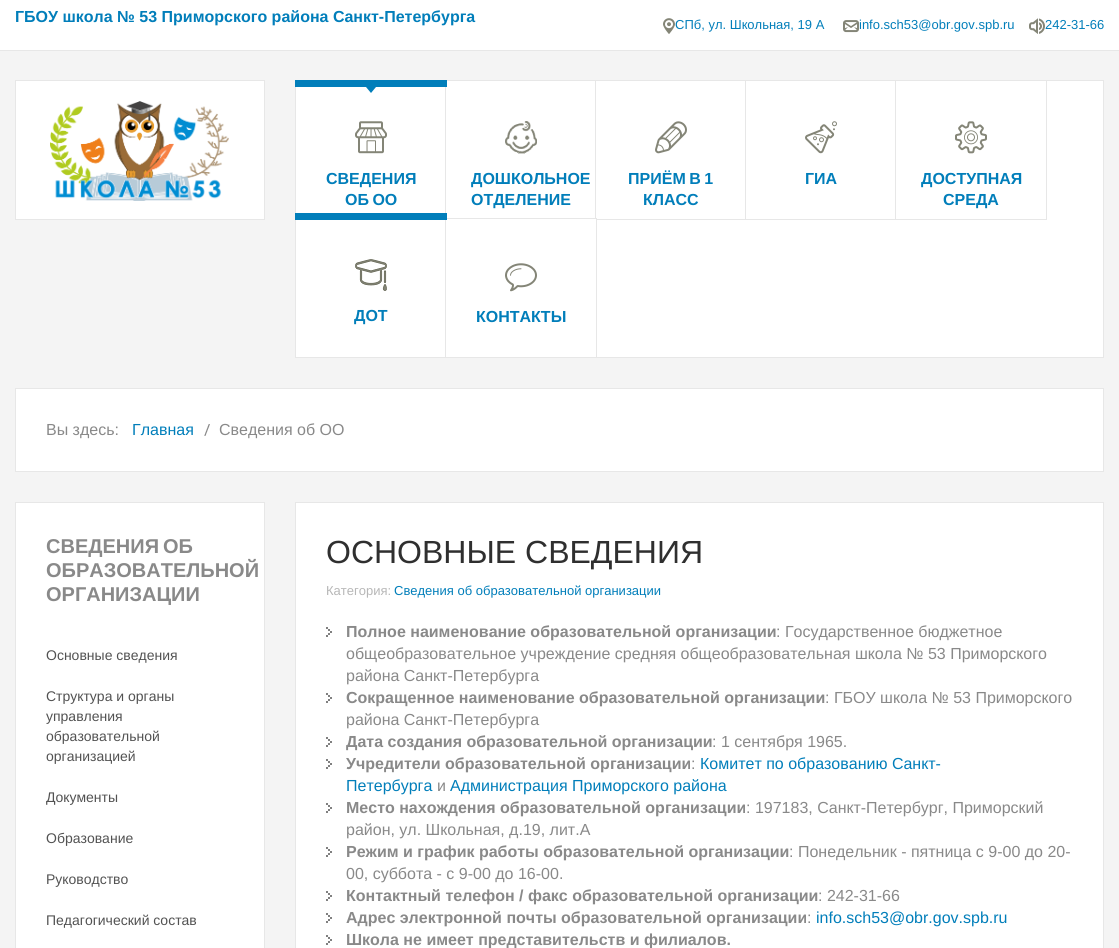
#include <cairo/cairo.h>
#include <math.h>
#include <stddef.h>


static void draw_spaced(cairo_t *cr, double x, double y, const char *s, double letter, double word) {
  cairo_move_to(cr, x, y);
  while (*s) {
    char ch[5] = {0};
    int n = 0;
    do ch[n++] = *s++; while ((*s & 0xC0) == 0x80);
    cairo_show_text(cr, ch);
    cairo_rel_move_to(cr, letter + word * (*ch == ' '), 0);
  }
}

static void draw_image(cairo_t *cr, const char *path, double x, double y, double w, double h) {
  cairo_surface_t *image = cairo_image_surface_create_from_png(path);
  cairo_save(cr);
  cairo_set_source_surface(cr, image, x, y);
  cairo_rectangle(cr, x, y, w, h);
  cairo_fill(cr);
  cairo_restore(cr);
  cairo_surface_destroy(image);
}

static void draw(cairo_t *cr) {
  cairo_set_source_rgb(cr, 244 / 255.0, 244 / 255.0, 244 / 255.0);
  cairo_paint(cr);
  cairo_set_source_rgb(cr, 1, 1, 1);
  cairo_rectangle(cr, 0, 0, 1119, 50);
  cairo_fill(cr);
  cairo_set_source_rgb(cr, 231 / 255.0, 231 / 255.0, 231 / 255.0);
  cairo_rectangle(cr, 0, 50, 1119, 1);
  cairo_fill(cr);
  draw_image(cr, "images/1.png", 663, 18, 12, 16);
  draw_image(cr, "images/2.png", 843, 20, 16, 13);
  draw_image(cr, "images/3.png", 1029, 18, 16, 16);
  cairo_set_source_rgb(cr, 1, 1, 1);
  cairo_rectangle(cr, 15.5, 80.5, 249, 139);
  cairo_fill_preserve(cr);
  cairo_set_source_rgb(cr, 231 / 255.0, 231 / 255.0, 231 / 255.0);
  cairo_set_line_width(cr, 1);
  cairo_stroke(cr);
  draw_image(cr, "images/4.png", 50, 101, 179, 100);
  cairo_set_source_rgb(cr, 1, 1, 1);
  cairo_rectangle(cr, 597, 81, 506, 276);
  cairo_fill(cr);
  cairo_rectangle(cr, 295.5, 80.5, 808, 277);
  cairo_set_source_rgb(cr, 231 / 255.0, 231 / 255.0, 231 / 255.0);
  cairo_stroke(cr);
  cairo_set_source_rgb(cr, 1, 1, 1);
  cairo_rectangle(cr, 296, 87, 149, 126);
  cairo_fill(cr);
  cairo_rectangle(cr, 295.5, 80.5, 151, 139);
  cairo_set_source_rgb(cr, 231 / 255.0, 231 / 255.0, 231 / 255.0);
  cairo_stroke(cr);
  cairo_set_source_rgb(cr, 1, 1, 1);
  cairo_rectangle(cr, 446, 81, 149, 137);
  cairo_fill(cr);
  cairo_rectangle(cr, 445.5, 80.5, 151, 139);
  cairo_set_source_rgb(cr, 231 / 255.0, 231 / 255.0, 231 / 255.0);
  cairo_stroke(cr);
  cairo_set_source_rgb(cr, 1 / 255.0, 126 / 255.0, 186 / 255.0);
  cairo_rectangle(cr, 295, 80, 152, 7);
  cairo_fill(cr);
  cairo_set_source_rgb(cr, 1, 1, 1);
  cairo_rectangle(cr, 296, 220, 149, 137);
  cairo_fill(cr);
  cairo_rectangle(cr, 295.5, 218.5, 151, 139);
  cairo_set_source_rgb(cr, 231 / 255.0, 231 / 255.0, 231 / 255.0);
  cairo_stroke(cr);
  cairo_set_source_rgb(cr, 1, 1, 1);
  cairo_rectangle(cr, 596, 81, 1, 138);
  cairo_fill(cr);
  cairo_rectangle(cr, 595.5, 80.5, 151, 139);
  cairo_set_source_rgb(cr, 231 / 255.0, 231 / 255.0, 231 / 255.0);
  cairo_stroke(cr);
  cairo_set_source_rgb(cr, 1, 1, 1);
  cairo_rectangle(cr, 445.5, 218.5, 151, 139);
  cairo_fill_preserve(cr);
  cairo_set_source_rgb(cr, 231 / 255.0, 231 / 255.0, 231 / 255.0);
  cairo_stroke(cr);
  cairo_set_source_rgb(cr, 1 / 255.0, 126 / 255.0, 186 / 255.0);
  cairo_rectangle(cr, 295, 213, 152, 7);
  cairo_fill(cr);
  cairo_new_path(cr);
  cairo_move_to(cr, 366, 87);
  cairo_line_to(cr, 376, 87);
  cairo_line_to(cr, 371, 93);
  cairo_close_path(cr);
  cairo_fill(cr);
  draw_image(cr, "images/5.png", 355, 121, 32, 33);
  draw_image(cr, "images/6.png", 505, 121, 32, 33);
  draw_image(cr, "images/7.png", 655, 121, 32, 33);
  cairo_set_source_rgb(cr, 1, 1, 1);
  cairo_rectangle(cr, 746, 81, 1, 138);
  cairo_fill(cr);
  cairo_rectangle(cr, 745.5, 80.5, 151, 139);
  cairo_set_source_rgb(cr, 231 / 255.0, 231 / 255.0, 231 / 255.0);
  cairo_stroke(cr);
  draw_image(cr, "images/8.png", 805, 121, 32, 33);
  cairo_set_source_rgb(cr, 1, 1, 1);
  cairo_rectangle(cr, 896, 81, 1, 138);
  cairo_fill(cr);
  cairo_rectangle(cr, 895.5, 80.5, 151, 139);
  cairo_set_source_rgb(cr, 231 / 255.0, 231 / 255.0, 231 / 255.0);
  cairo_stroke(cr);
  draw_image(cr, "images/9.png", 955, 121, 32, 33);
  draw_image(cr, "images/10.png", 355, 259, 32, 32);
  draw_image(cr, "images/11.png", 505, 263, 32, 29);
  cairo_set_source_rgb(cr, 1, 1, 1);
  cairo_rectangle(cr, 15.5, 388.5, 1088, 83);
  cairo_fill_preserve(cr);
  cairo_set_source_rgb(cr, 231 / 255.0, 231 / 255.0, 231 / 255.0);
  cairo_stroke(cr);
  draw_image(cr, "images/12.png", 204, 424, 6, 12);
  cairo_set_source_rgb(cr, 1, 1, 1);
  cairo_rectangle(cr, 15.5, 502.5, 249, 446);
  cairo_fill_preserve(cr);
  cairo_set_source_rgb(cr, 231 / 255.0, 231 / 255.0, 231 / 255.0);
  cairo_stroke(cr);
  cairo_set_source_rgb(cr, 1, 1, 1);
  cairo_rectangle(cr, 295.5, 502.5, 808, 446);
  cairo_fill_preserve(cr);
  cairo_set_source_rgb(cr, 231 / 255.0, 231 / 255.0, 231 / 255.0);
  cairo_stroke(cr);
  draw_image(cr, "images/13.png", 326, 627, 6, 10);
  draw_image(cr, "images/13.png", 326, 693, 6, 10);
  draw_image(cr, "images/13.png", 326, 737, 6, 10);
  draw_image(cr, "images/13.png", 326, 759, 6, 10);
  draw_image(cr, "images/13.png", 326, 803, 6, 10);
  draw_image(cr, "images/13.png", 326, 847, 6, 10);
  draw_image(cr, "images/13.png", 326, 891, 6, 10);
  draw_image(cr, "images/13.png", 326, 913, 6, 10);
  draw_image(cr, "images/13.png", 326, 935, 6, 10);
  cairo_select_font_face(cr, "Liberation Sans", CAIRO_FONT_SLANT_NORMAL, CAIRO_FONT_WEIGHT_BOLD);
  cairo_set_font_size(cr, 16);
  cairo_set_source_rgb(cr, 1 / 255.0, 126 / 255.0, 186 / 255.0);
  cairo_move_to(cr, 15, 22);
  cairo_show_text(cr, "ГБОУ школа № 53 Приморского района Санкт-Петербурга");
  cairo_select_font_face(cr, "Liberation Sans", CAIRO_FONT_SLANT_NORMAL, CAIRO_FONT_WEIGHT_NORMAL);
  cairo_set_font_size(cr, 13);
  cairo_move_to(cr, 675, 29);
  cairo_show_text(cr, "СПб, ул. Школьная, 19 А");
  cairo_move_to(cr, 859, 29);
  cairo_show_text(cr, "info.sch53@obr.gov.spb.ru");
  cairo_move_to(cr, 1045, 29);
  cairo_show_text(cr, "242-31-66");
  cairo_select_font_face(cr, "Liberation Sans", CAIRO_FONT_SLANT_NORMAL, CAIRO_FONT_WEIGHT_BOLD);
  cairo_set_font_size(cr, 16);
  cairo_move_to(cr, 326, 184);
  cairo_show_text(cr, "СВЕДЕНИЯ");
  draw_spaced(cr, 345, 205, "ОБ ОО", 0, -1);
  cairo_move_to(cr, 471, 184);
  cairo_show_text(cr, "ДОШКОЛЬНОЕ");
  cairo_move_to(cr, 471, 205);
  cairo_show_text(cr, "ОТДЕЛЕНИЕ");
  draw_spaced(cr, 628, 184, "ПРИЁМ В 1", 0, -1);
  cairo_move_to(cr, 643, 205);
  cairo_show_text(cr, "КЛАСС");
  cairo_move_to(cr, 805, 184);
  cairo_show_text(cr, "ГИА");
  cairo_move_to(cr, 921, 184);
  cairo_show_text(cr, "ДОСТУПНАЯ");
  cairo_move_to(cr, 943, 205);
  cairo_show_text(cr, "СРЕДА");
  cairo_move_to(cr, 354, 321);
  cairo_show_text(cr, "ДОТ");
  cairo_move_to(cr, 476, 322);
  cairo_show_text(cr, "КОНТАКТЫ");
  cairo_select_font_face(cr, "Liberation Sans", CAIRO_FONT_SLANT_NORMAL, CAIRO_FONT_WEIGHT_NORMAL);
  cairo_set_source_rgb(cr, 137 / 255.0, 137 / 255.0, 137 / 255.0);
  cairo_move_to(cr, 46, 435);
  cairo_show_text(cr, "Вы здесь:");
  cairo_set_source_rgb(cr, 1 / 255.0, 126 / 255.0, 186 / 255.0);
  cairo_move_to(cr, 132, 435);
  cairo_show_text(cr, "Главная");
  cairo_set_source_rgb(cr, 137 / 255.0, 137 / 255.0, 137 / 255.0);
  cairo_move_to(cr, 219, 435);
  cairo_show_text(cr, "Сведения об ОО");
  cairo_select_font_face(cr, "Liberation Sans", CAIRO_FONT_SLANT_NORMAL, CAIRO_FONT_WEIGHT_BOLD);
  cairo_set_font_size(cr, 20);
  cairo_move_to(cr, 46, 553);
  cairo_show_text(cr, "СВЕДЕНИЯ");
  cairo_move_to(cr, 163, 553);
  cairo_show_text(cr, "ОБ");
  cairo_move_to(cr, 46, 577);
  cairo_show_text(cr, "ОБРАЗОВАТЕЛЬНОЙ");
  cairo_move_to(cr, 46, 601);
  cairo_show_text(cr, "ОРГАНИЗАЦИИ");
  cairo_select_font_face(cr, "Liberation Sans", CAIRO_FONT_SLANT_NORMAL, CAIRO_FONT_WEIGHT_NORMAL);
  cairo_set_font_size(cr, 14);
  cairo_set_source_rgb(cr, 82 / 255.0, 82 / 255.0, 82 / 255.0);
  cairo_move_to(cr, 46, 660);
  cairo_show_text(cr, "Основные сведения");
  cairo_move_to(cr, 46, 701);
  cairo_show_text(cr, "Структура и органы");
  cairo_move_to(cr, 46, 721);
  cairo_show_text(cr, "управления");
  cairo_move_to(cr, 46, 741);
  cairo_show_text(cr, "образовательной");
  cairo_move_to(cr, 46, 761);
  cairo_show_text(cr, "организацией");
  cairo_move_to(cr, 46, 802);
  cairo_show_text(cr, "Документы");
  cairo_move_to(cr, 46, 843);
  cairo_show_text(cr, "Образование");
  cairo_move_to(cr, 46, 884);
  cairo_show_text(cr, "Руководство");
  cairo_move_to(cr, 46, 925);
  cairo_show_text(cr, "Педагогический состав");
  cairo_set_font_size(cr, 32);
  cairo_set_source_rgb(cr, 47 / 255.0, 47 / 255.0, 47 / 255.0);
  cairo_move_to(cr, 326, 563);
  cairo_show_text(cr, "ОСНОВНЫЕ СВЕДЕНИЯ");
  cairo_set_font_size(cr, 13);
  cairo_set_source_rgb(cr, 183 / 255.0, 183 / 255.0, 183 / 255.0);
  cairo_move_to(cr, 326, 595);
  cairo_show_text(cr, "Категория:");
  cairo_set_source_rgb(cr, 1 / 255.0, 126 / 255.0, 186 / 255.0);
  cairo_move_to(cr, 394, 595);
  cairo_show_text(cr, "Сведения об образовательной организации");
  cairo_select_font_face(cr, "Liberation Sans", CAIRO_FONT_SLANT_NORMAL, CAIRO_FONT_WEIGHT_BOLD);
  cairo_set_font_size(cr, 16);
  cairo_set_source_rgb(cr, 137 / 255.0, 137 / 255.0, 137 / 255.0);
  cairo_move_to(cr, 346, 637);
  cairo_show_text(cr, "Полное наименование образовательной организации");
  cairo_select_font_face(cr, "Liberation Sans", CAIRO_FONT_SLANT_NORMAL, CAIRO_FONT_WEIGHT_NORMAL);
  cairo_move_to(cr, 776, 637);
  cairo_show_text(cr, ": Государственное бюджетное");
  cairo_move_to(cr, 346, 659);
  cairo_show_text(cr, "общеобразовательное учреждение средняя общеобразовательная школа № 53 Приморского");
  cairo_move_to(cr, 346, 681);
  cairo_show_text(cr, "района Санкт-Петербурга");
  cairo_select_font_face(cr, "Liberation Sans", CAIRO_FONT_SLANT_NORMAL, CAIRO_FONT_WEIGHT_BOLD);
  cairo_move_to(cr, 346, 703);
  cairo_show_text(cr, "Сокращенное наименование образовательной организации");
  cairo_select_font_face(cr, "Liberation Sans", CAIRO_FONT_SLANT_NORMAL, CAIRO_FONT_WEIGHT_NORMAL);
  cairo_move_to(cr, 825, 703);
  cairo_show_text(cr, ": ГБОУ школа № 53 Приморского");
  cairo_move_to(cr, 346, 725);
  cairo_show_text(cr, "района Санкт-Петербурга");
  cairo_select_font_face(cr, "Liberation Sans", CAIRO_FONT_SLANT_NORMAL, CAIRO_FONT_WEIGHT_BOLD);
  cairo_move_to(cr, 346, 747);
  cairo_show_text(cr, "Дата создания образовательной организации");
  cairo_select_font_face(cr, "Liberation Sans", CAIRO_FONT_SLANT_NORMAL, CAIRO_FONT_WEIGHT_NORMAL);
  cairo_move_to(cr, 712, 747);
  cairo_show_text(cr, ": 1 сентября 1965.");
  cairo_select_font_face(cr, "Liberation Sans", CAIRO_FONT_SLANT_NORMAL, CAIRO_FONT_WEIGHT_BOLD);
  cairo_move_to(cr, 346, 769);
  cairo_show_text(cr, "Учредители образовательной организации");
  cairo_select_font_face(cr, "Liberation Sans", CAIRO_FONT_SLANT_NORMAL, CAIRO_FONT_WEIGHT_NORMAL);
  cairo_move_to(cr, 691, 769);
  cairo_show_text(cr, ":");
  cairo_set_source_rgb(cr, 1 / 255.0, 126 / 255.0, 186 / 255.0);
  cairo_move_to(cr, 700, 769);
  cairo_show_text(cr, "Комитет по образованию Санкт-");
  cairo_move_to(cr, 346, 791);
  cairo_show_text(cr, "Петербурга");
  cairo_set_source_rgb(cr, 137 / 255.0, 137 / 255.0, 137 / 255.0);
  cairo_move_to(cr, 437, 791);
  cairo_show_text(cr, "и");
  cairo_set_source_rgb(cr, 1 / 255.0, 126 / 255.0, 186 / 255.0);
  cairo_move_to(cr, 450, 791);
  cairo_show_text(cr, "Администрация Приморского района");
  cairo_select_font_face(cr, "Liberation Sans", CAIRO_FONT_SLANT_NORMAL, CAIRO_FONT_WEIGHT_BOLD);
  cairo_set_source_rgb(cr, 137 / 255.0, 137 / 255.0, 137 / 255.0);
  cairo_move_to(cr, 346, 813);
  cairo_show_text(cr, "Место нахождения образовательной организации");
  cairo_select_font_face(cr, "Liberation Sans", CAIRO_FONT_SLANT_NORMAL, CAIRO_FONT_WEIGHT_NORMAL);
  cairo_move_to(cr, 746, 813);
  cairo_show_text(cr, ": 197183, Санкт-Петербург, Приморский");
  cairo_move_to(cr, 346, 835);
  cairo_show_text(cr, "район, ул. Школьная, д.19, лит.А");
  cairo_select_font_face(cr, "Liberation Sans", CAIRO_FONT_SLANT_NORMAL, CAIRO_FONT_WEIGHT_BOLD);
  cairo_move_to(cr, 346, 857);
  cairo_show_text(cr, "Режим и график работы образовательной организации");
  cairo_select_font_face(cr, "Liberation Sans", CAIRO_FONT_SLANT_NORMAL, CAIRO_FONT_WEIGHT_NORMAL);
  cairo_move_to(cr, 789, 857);
  cairo_show_text(cr, ": Понедельник - пятница с 9-00 до 20-");
  cairo_move_to(cr, 346, 879);
  cairo_show_text(cr, "00, суббота - с 9-00 до 16-00.");
  cairo_select_font_face(cr, "Liberation Sans", CAIRO_FONT_SLANT_NORMAL, CAIRO_FONT_WEIGHT_BOLD);
  cairo_move_to(cr, 346, 901);
  cairo_show_text(cr, "Контактный телефон / факс образовательной организации");
  cairo_select_font_face(cr, "Liberation Sans", CAIRO_FONT_SLANT_NORMAL, CAIRO_FONT_WEIGHT_NORMAL);
  cairo_move_to(cr, 818, 901);
  cairo_show_text(cr, ": 242-31-66");
  cairo_select_font_face(cr, "Liberation Sans", CAIRO_FONT_SLANT_NORMAL, CAIRO_FONT_WEIGHT_BOLD);
  cairo_move_to(cr, 346, 923);
  cairo_show_text(cr, "Адрес электронной почты образовательной организации");
  cairo_select_font_face(cr, "Liberation Sans", CAIRO_FONT_SLANT_NORMAL, CAIRO_FONT_WEIGHT_NORMAL);
  cairo_move_to(cr, 807, 923);
  cairo_show_text(cr, ":");
  cairo_set_source_rgb(cr, 1 / 255.0, 126 / 255.0, 186 / 255.0);
  cairo_move_to(cr, 816, 923);
  cairo_show_text(cr, "info.sch53@obr.gov.spb.ru");
  cairo_select_font_face(cr, "Liberation Sans", CAIRO_FONT_SLANT_NORMAL, CAIRO_FONT_WEIGHT_BOLD);
  cairo_set_source_rgb(cr, 137 / 255.0, 137 / 255.0, 137 / 255.0);
  cairo_move_to(cr, 346, 945);
  cairo_show_text(cr, "Школа не имеет представительств и филиалов.");
}

int main(void) {
  cairo_surface_t *surface = cairo_image_surface_create(CAIRO_FORMAT_RGB24, 1119, 948);
  cairo_t *cr = cairo_create(surface);
  cairo_font_options_t *options = cairo_font_options_create();
  cairo_font_options_set_hint_metrics(options, CAIRO_HINT_METRICS_OFF);
  cairo_font_options_set_hint_style(options, CAIRO_HINT_STYLE_NONE);
  cairo_set_font_options(cr, options);
  cairo_set_miter_limit(cr, 4);
  draw(cr);
  cairo_surface_write_to_png(surface, "out.png");
  cairo_font_options_destroy(options);
  cairo_destroy(cr);
  cairo_surface_destroy(surface);
  return 0;
}
